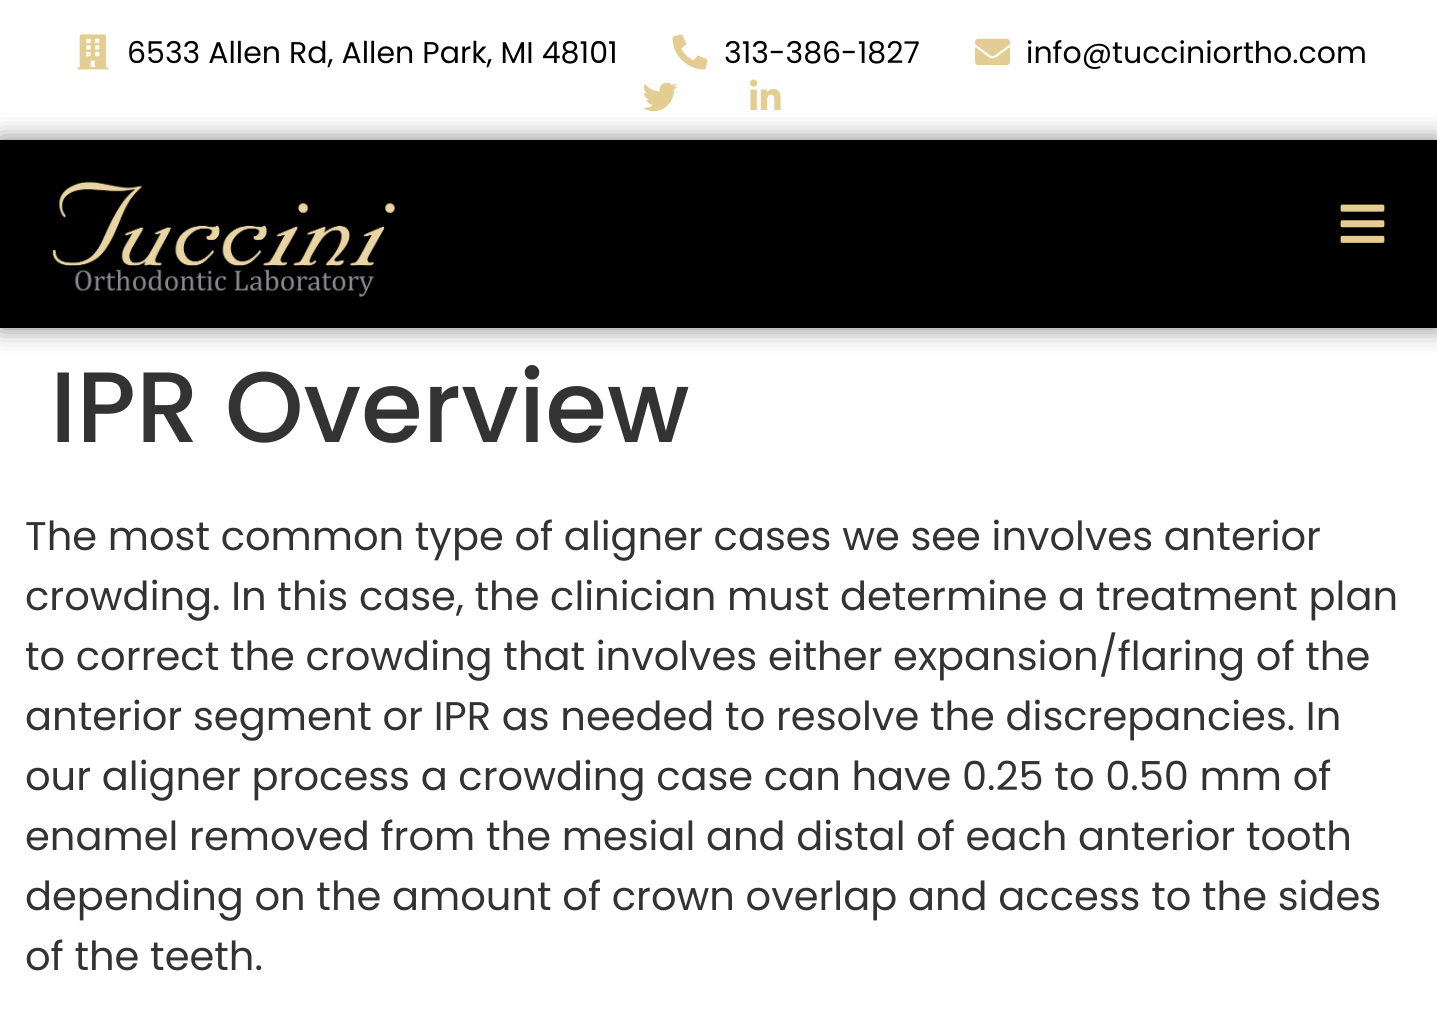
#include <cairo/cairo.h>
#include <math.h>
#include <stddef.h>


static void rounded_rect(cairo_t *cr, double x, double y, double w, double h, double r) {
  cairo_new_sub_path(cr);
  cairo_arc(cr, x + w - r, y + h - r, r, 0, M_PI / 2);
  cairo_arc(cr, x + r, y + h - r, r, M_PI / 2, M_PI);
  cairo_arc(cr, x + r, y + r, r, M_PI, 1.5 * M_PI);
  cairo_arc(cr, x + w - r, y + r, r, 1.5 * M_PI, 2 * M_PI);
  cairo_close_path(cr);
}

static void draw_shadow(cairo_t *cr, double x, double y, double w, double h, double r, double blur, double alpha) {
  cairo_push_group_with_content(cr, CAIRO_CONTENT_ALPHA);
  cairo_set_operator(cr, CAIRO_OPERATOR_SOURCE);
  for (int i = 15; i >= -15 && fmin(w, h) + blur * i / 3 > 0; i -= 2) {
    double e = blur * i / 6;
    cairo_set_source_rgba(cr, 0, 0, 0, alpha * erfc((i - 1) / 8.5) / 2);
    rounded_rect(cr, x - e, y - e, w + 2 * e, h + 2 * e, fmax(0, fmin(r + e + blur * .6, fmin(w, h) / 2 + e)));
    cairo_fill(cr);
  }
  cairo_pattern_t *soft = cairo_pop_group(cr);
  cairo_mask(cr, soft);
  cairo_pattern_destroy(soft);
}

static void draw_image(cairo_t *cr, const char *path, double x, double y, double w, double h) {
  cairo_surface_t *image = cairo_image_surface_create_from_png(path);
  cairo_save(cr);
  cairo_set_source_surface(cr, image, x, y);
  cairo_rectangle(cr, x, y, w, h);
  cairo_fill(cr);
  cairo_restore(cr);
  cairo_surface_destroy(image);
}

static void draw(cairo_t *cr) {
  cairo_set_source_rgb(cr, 1, 1, 1);
  cairo_paint(cr);
  draw_image(cr, "images/1.png", 77, 34, 32, 36);
  draw_image(cr, "images/2.png", 672, 34, 36, 36);
  draw_image(cr, "images/3.png", 975, 38, 35, 27);
  draw_image(cr, "images/4.png", 642, 82, 36, 30);
  draw_image(cr, "images/5.png", 750, 79, 31, 31);
  cairo_set_source_rgb(cr, 0, 0, 0);
  draw_shadow(cr, 0, 140, 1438, 188, 0, 12.5, 0.5);
  cairo_set_source_rgb(cr, 0, 0, 0);
  cairo_rectangle(cr, 0, 140, 1437, 188);
  cairo_fill(cr);
  draw_image(cr, "images/6.png", 52, 181, 344, 116);
  draw_image(cr, "images/7.png", 1340, 204, 45, 39);
  cairo_select_font_face(cr, "Poppins", CAIRO_FONT_SLANT_NORMAL, CAIRO_FONT_WEIGHT_NORMAL);
  cairo_set_font_size(cr, 30);
  cairo_move_to(cr, 127, 63);
  cairo_show_text(cr, "6533 Allen Rd, Allen Park, MI 48101");
  cairo_move_to(cr, 724, 63);
  cairo_show_text(cr, "313-386-1827");
  cairo_move_to(cr, 1026, 63);
  cairo_show_text(cr, "info@tucciniortho.com");
  cairo_select_font_face(cr, "Poppins Medium", CAIRO_FONT_SLANT_NORMAL, CAIRO_FONT_WEIGHT_NORMAL);
  cairo_set_font_size(cr, 100);
  cairo_set_source_rgb(cr, 51 / 255.0, 51 / 255.0, 51 / 255.0);
  cairo_move_to(cr, 50, 442);
  cairo_show_text(cr, "IPR Overview");
  cairo_select_font_face(cr, "Poppins", CAIRO_FONT_SLANT_NORMAL, CAIRO_FONT_WEIGHT_NORMAL);
  cairo_set_font_size(cr, 40);
  cairo_move_to(cr, 25, 550);
  cairo_show_text(cr, "The most common type of aligner cases we see involves anterior");
  cairo_move_to(cr, 25, 610);
  cairo_show_text(cr, "crowding. In this case, the clinician must determine a treatment plan");
  cairo_move_to(cr, 25, 670);
  cairo_show_text(cr, "to correct the crowding that involves either expansion/flaring of the");
  cairo_move_to(cr, 25, 730);
  cairo_show_text(cr, "anterior segment or IPR as needed to resolve the discrepancies. In");
  cairo_move_to(cr, 25, 790);
  cairo_show_text(cr, "our aligner process a crowding case can have 0.25 to 0.50 mm of");
  cairo_move_to(cr, 25, 850);
  cairo_show_text(cr, "enamel removed from the mesial and distal of each anterior tooth");
  cairo_move_to(cr, 25, 910);
  cairo_show_text(cr, "depending on the amount of crown overlap and access to the sides");
  cairo_move_to(cr, 25, 970);
  cairo_show_text(cr, "of the teeth.");
}

int main(void) {
  cairo_surface_t *surface = cairo_image_surface_create(CAIRO_FORMAT_RGB24, 1437, 1010);
  cairo_t *cr = cairo_create(surface);
  cairo_font_options_t *options = cairo_font_options_create();
  cairo_font_options_set_hint_metrics(options, CAIRO_HINT_METRICS_OFF);
  cairo_font_options_set_hint_style(options, CAIRO_HINT_STYLE_NONE);
  cairo_set_font_options(cr, options);
  cairo_set_miter_limit(cr, 4);
  draw(cr);
  cairo_surface_write_to_png(surface, "out.png");
  cairo_font_options_destroy(options);
  cairo_destroy(cr);
  cairo_surface_destroy(surface);
  return 0;
}
